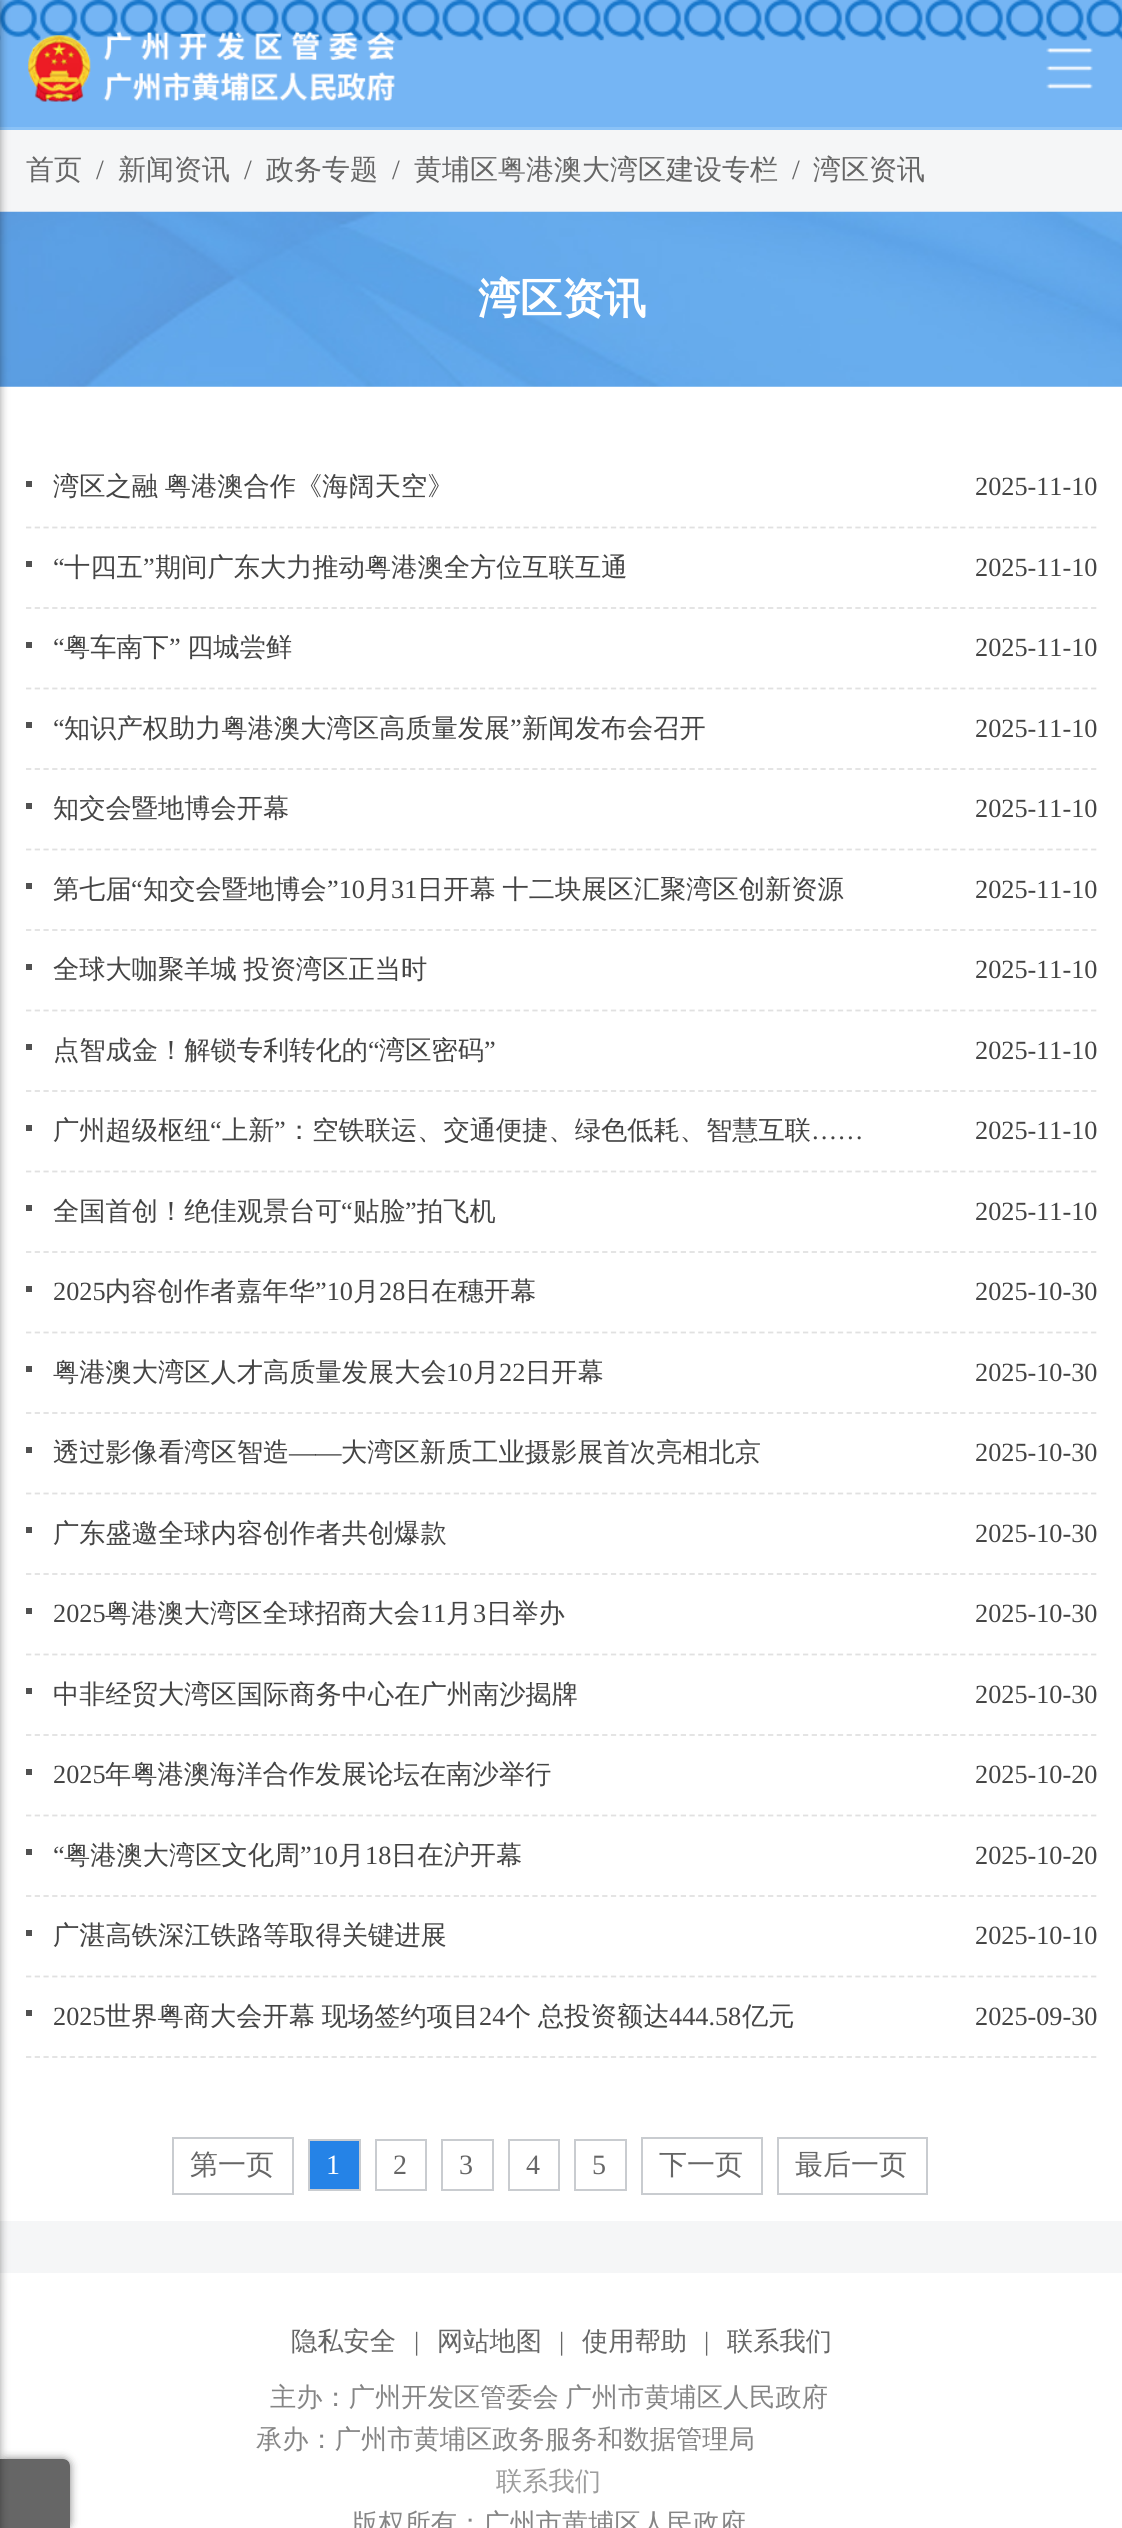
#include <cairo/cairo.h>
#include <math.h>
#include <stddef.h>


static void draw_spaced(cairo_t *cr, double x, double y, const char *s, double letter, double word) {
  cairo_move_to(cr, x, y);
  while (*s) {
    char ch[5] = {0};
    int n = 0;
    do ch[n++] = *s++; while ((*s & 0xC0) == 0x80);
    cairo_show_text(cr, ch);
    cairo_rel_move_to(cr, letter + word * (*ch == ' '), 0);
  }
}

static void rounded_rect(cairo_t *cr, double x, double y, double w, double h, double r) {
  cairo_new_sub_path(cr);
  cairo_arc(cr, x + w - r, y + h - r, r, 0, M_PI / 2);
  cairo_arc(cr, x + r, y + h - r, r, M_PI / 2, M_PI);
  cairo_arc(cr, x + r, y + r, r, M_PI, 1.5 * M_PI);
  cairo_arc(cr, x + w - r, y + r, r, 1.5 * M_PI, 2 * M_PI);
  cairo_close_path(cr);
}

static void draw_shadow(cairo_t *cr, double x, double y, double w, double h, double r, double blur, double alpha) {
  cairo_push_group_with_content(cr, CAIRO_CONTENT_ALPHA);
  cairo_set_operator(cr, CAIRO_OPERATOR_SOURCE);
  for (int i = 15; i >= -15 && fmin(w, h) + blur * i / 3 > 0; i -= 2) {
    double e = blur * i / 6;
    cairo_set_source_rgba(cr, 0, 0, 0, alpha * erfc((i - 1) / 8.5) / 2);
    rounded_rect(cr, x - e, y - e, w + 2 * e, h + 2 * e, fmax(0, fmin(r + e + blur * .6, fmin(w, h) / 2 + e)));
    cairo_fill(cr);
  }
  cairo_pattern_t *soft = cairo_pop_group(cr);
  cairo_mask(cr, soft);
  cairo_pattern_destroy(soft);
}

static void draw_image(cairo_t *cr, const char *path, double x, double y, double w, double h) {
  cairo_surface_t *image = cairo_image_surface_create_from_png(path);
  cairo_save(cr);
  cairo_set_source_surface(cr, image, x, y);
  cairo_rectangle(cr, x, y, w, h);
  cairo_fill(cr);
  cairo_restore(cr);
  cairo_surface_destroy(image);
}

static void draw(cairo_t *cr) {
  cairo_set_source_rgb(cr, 245 / 255.0, 246 / 255.0, 247 / 255.0);
  cairo_paint(cr);
  cairo_set_source_rgb(cr, 117 / 255.0, 181 / 255.0, 244 / 255.0);
  cairo_rectangle(cr, 0, 0, 1122, 127);
  cairo_fill(cr);
  draw_image(cr, "images/1.png", 0, 0, 1122, 41);
  draw_image(cr, "images/2.png", 28, 31, 367, 71);
  draw_image(cr, "images/3.png", 1046, 48, 47, 41);
  cairo_set_source_rgb(cr, 138 / 255.0, 194 / 255.0, 247 / 255.0);
  cairo_rectangle(cr, 0, 127, 1122, 3);
  cairo_fill(cr);
  cairo_set_source_rgb(cr, 1, 1, 1);
  cairo_rectangle(cr, 0, 386, 1122, 1835);
  cairo_fill(cr);
  draw_image(cr, "images/4.png", 0, 211, 1122, 176);
  cairo_rectangle(cr, 0, 2273, 1122, 255);
  cairo_fill(cr);
  cairo_set_source_rgb(cr, 0, 0, 0);
  draw_shadow(cr, -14, 0, 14, 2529, 0, 4.5, 0.4);
  cairo_save(cr);
  cairo_set_fill_rule(cr, CAIRO_FILL_RULE_EVEN_ODD);
  cairo_new_path(cr);
  cairo_move_to(cr, 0, 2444);
  cairo_line_to(cr, 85, 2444);
  cairo_line_to(cr, 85, 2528);
  cairo_line_to(cr, 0, 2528);
  cairo_close_path(cr);
  cairo_move_to(cr, 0, 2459);
  cairo_line_to(cr, 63, 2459);
  cairo_curve_to(cr, 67, 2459, 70, 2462, 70, 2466);
  cairo_line_to(cr, 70, 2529);
  cairo_line_to(cr, 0, 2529);
  cairo_close_path(cr);
  cairo_clip(cr);
  draw_shadow(cr, 0, 2459, 70, 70, 7, 4.5, 0.5);
  cairo_restore(cr);
  cairo_set_source_rgba(cr, 0, 0, 0, 0.6);
  cairo_new_path(cr);
  cairo_move_to(cr, 0, 2459);
  cairo_line_to(cr, 63, 2459);
  cairo_curve_to(cr, 67, 2459, 70, 2462, 70, 2466);
  cairo_line_to(cr, 70, 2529);
  cairo_line_to(cr, 0, 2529);
  cairo_close_path(cr);
  cairo_fill(cr);
  cairo_set_source_rgb(cr, 81 / 255.0, 81 / 255.0, 81 / 255.0);
  cairo_rectangle(cr, 26, 481, 6, 6);
  cairo_fill(cr);
  cairo_new_path(cr);
  cairo_move_to(cr, 26, 527.5);
  cairo_line_to(cr, 1097, 527.5);
  cairo_set_source_rgb(cr, 225 / 255.0, 225 / 255.0, 225 / 255.0);
  cairo_set_line_width(cr, 1.8);
  cairo_set_dash(cr, (double[]){5.25, 3.48}, 2, 0);
  cairo_stroke(cr);
  cairo_set_source_rgb(cr, 81 / 255.0, 81 / 255.0, 81 / 255.0);
  cairo_rectangle(cr, 26, 561, 6, 6);
  cairo_fill(cr);
  cairo_new_path(cr);
  cairo_move_to(cr, 26, 608);
  cairo_line_to(cr, 1097, 608);
  cairo_set_source_rgb(cr, 225 / 255.0, 225 / 255.0, 225 / 255.0);
  cairo_stroke(cr);
  cairo_set_source_rgb(cr, 81 / 255.0, 81 / 255.0, 81 / 255.0);
  cairo_rectangle(cr, 26, 642, 6, 6);
  cairo_fill(cr);
  cairo_new_path(cr);
  cairo_move_to(cr, 26, 688.5);
  cairo_line_to(cr, 1097, 688.5);
  cairo_set_source_rgb(cr, 225 / 255.0, 225 / 255.0, 225 / 255.0);
  cairo_stroke(cr);
  cairo_set_source_rgb(cr, 81 / 255.0, 81 / 255.0, 81 / 255.0);
  cairo_rectangle(cr, 26, 722, 6, 6);
  cairo_fill(cr);
  cairo_new_path(cr);
  cairo_move_to(cr, 26, 769);
  cairo_line_to(cr, 1097, 769);
  cairo_set_source_rgb(cr, 225 / 255.0, 225 / 255.0, 225 / 255.0);
  cairo_stroke(cr);
  cairo_set_source_rgb(cr, 81 / 255.0, 81 / 255.0, 81 / 255.0);
  cairo_rectangle(cr, 26, 803, 6, 6);
  cairo_fill(cr);
  cairo_new_path(cr);
  cairo_move_to(cr, 26, 849.5);
  cairo_line_to(cr, 1097, 849.5);
  cairo_set_source_rgb(cr, 225 / 255.0, 225 / 255.0, 225 / 255.0);
  cairo_stroke(cr);
  cairo_set_source_rgb(cr, 81 / 255.0, 81 / 255.0, 81 / 255.0);
  cairo_rectangle(cr, 26, 883, 6, 6);
  cairo_fill(cr);
  cairo_new_path(cr);
  cairo_move_to(cr, 26, 930);
  cairo_line_to(cr, 1097, 930);
  cairo_set_source_rgb(cr, 225 / 255.0, 225 / 255.0, 225 / 255.0);
  cairo_stroke(cr);
  cairo_set_source_rgb(cr, 81 / 255.0, 81 / 255.0, 81 / 255.0);
  cairo_rectangle(cr, 26, 964, 6, 6);
  cairo_fill(cr);
  cairo_new_path(cr);
  cairo_move_to(cr, 26, 1010.5);
  cairo_line_to(cr, 1097, 1010.5);
  cairo_set_source_rgb(cr, 225 / 255.0, 225 / 255.0, 225 / 255.0);
  cairo_stroke(cr);
  cairo_set_source_rgb(cr, 81 / 255.0, 81 / 255.0, 81 / 255.0);
  cairo_rectangle(cr, 26, 1044, 6, 6);
  cairo_fill(cr);
  cairo_new_path(cr);
  cairo_move_to(cr, 26, 1091);
  cairo_line_to(cr, 1097, 1091);
  cairo_set_source_rgb(cr, 225 / 255.0, 225 / 255.0, 225 / 255.0);
  cairo_stroke(cr);
  cairo_set_source_rgb(cr, 81 / 255.0, 81 / 255.0, 81 / 255.0);
  cairo_rectangle(cr, 26, 1125, 6, 6);
  cairo_fill(cr);
  cairo_new_path(cr);
  cairo_move_to(cr, 26, 1171.5);
  cairo_line_to(cr, 1097, 1171.5);
  cairo_set_source_rgb(cr, 225 / 255.0, 225 / 255.0, 225 / 255.0);
  cairo_stroke(cr);
  cairo_set_source_rgb(cr, 81 / 255.0, 81 / 255.0, 81 / 255.0);
  cairo_rectangle(cr, 26, 1205, 6, 6);
  cairo_fill(cr);
  cairo_new_path(cr);
  cairo_move_to(cr, 26, 1252);
  cairo_line_to(cr, 1097, 1252);
  cairo_set_source_rgb(cr, 225 / 255.0, 225 / 255.0, 225 / 255.0);
  cairo_stroke(cr);
  cairo_set_source_rgb(cr, 81 / 255.0, 81 / 255.0, 81 / 255.0);
  cairo_rectangle(cr, 26, 1286, 6, 6);
  cairo_fill(cr);
  cairo_new_path(cr);
  cairo_move_to(cr, 26, 1332.5);
  cairo_line_to(cr, 1097, 1332.5);
  cairo_set_source_rgb(cr, 225 / 255.0, 225 / 255.0, 225 / 255.0);
  cairo_stroke(cr);
  cairo_set_source_rgb(cr, 81 / 255.0, 81 / 255.0, 81 / 255.0);
  cairo_rectangle(cr, 26, 1366, 6, 6);
  cairo_fill(cr);
  cairo_new_path(cr);
  cairo_move_to(cr, 26, 1413);
  cairo_line_to(cr, 1097, 1413);
  cairo_set_source_rgb(cr, 225 / 255.0, 225 / 255.0, 225 / 255.0);
  cairo_stroke(cr);
  cairo_set_source_rgb(cr, 81 / 255.0, 81 / 255.0, 81 / 255.0);
  cairo_rectangle(cr, 26, 1447, 6, 6);
  cairo_fill(cr);
  cairo_new_path(cr);
  cairo_move_to(cr, 26, 1493.5);
  cairo_line_to(cr, 1097, 1493.5);
  cairo_set_source_rgb(cr, 225 / 255.0, 225 / 255.0, 225 / 255.0);
  cairo_stroke(cr);
  cairo_set_source_rgb(cr, 81 / 255.0, 81 / 255.0, 81 / 255.0);
  cairo_rectangle(cr, 26, 1527, 6, 6);
  cairo_fill(cr);
  cairo_new_path(cr);
  cairo_move_to(cr, 26, 1574);
  cairo_line_to(cr, 1097, 1574);
  cairo_set_source_rgb(cr, 225 / 255.0, 225 / 255.0, 225 / 255.0);
  cairo_stroke(cr);
  cairo_set_source_rgb(cr, 81 / 255.0, 81 / 255.0, 81 / 255.0);
  cairo_rectangle(cr, 26, 1608, 6, 6);
  cairo_fill(cr);
  cairo_new_path(cr);
  cairo_move_to(cr, 26, 1654.5);
  cairo_line_to(cr, 1097, 1654.5);
  cairo_set_source_rgb(cr, 225 / 255.0, 225 / 255.0, 225 / 255.0);
  cairo_stroke(cr);
  cairo_set_source_rgb(cr, 81 / 255.0, 81 / 255.0, 81 / 255.0);
  cairo_rectangle(cr, 26, 1688, 6, 6);
  cairo_fill(cr);
  cairo_new_path(cr);
  cairo_move_to(cr, 26, 1735);
  cairo_line_to(cr, 1097, 1735);
  cairo_set_source_rgb(cr, 225 / 255.0, 225 / 255.0, 225 / 255.0);
  cairo_stroke(cr);
  cairo_set_source_rgb(cr, 81 / 255.0, 81 / 255.0, 81 / 255.0);
  cairo_rectangle(cr, 26, 1769, 6, 6);
  cairo_fill(cr);
  cairo_new_path(cr);
  cairo_move_to(cr, 26, 1815.5);
  cairo_line_to(cr, 1097, 1815.5);
  cairo_set_source_rgb(cr, 225 / 255.0, 225 / 255.0, 225 / 255.0);
  cairo_stroke(cr);
  cairo_set_source_rgb(cr, 81 / 255.0, 81 / 255.0, 81 / 255.0);
  cairo_rectangle(cr, 26, 1849, 6, 6);
  cairo_fill(cr);
  cairo_new_path(cr);
  cairo_move_to(cr, 26, 1896);
  cairo_line_to(cr, 1097, 1896);
  cairo_set_source_rgb(cr, 225 / 255.0, 225 / 255.0, 225 / 255.0);
  cairo_stroke(cr);
  cairo_set_source_rgb(cr, 81 / 255.0, 81 / 255.0, 81 / 255.0);
  cairo_rectangle(cr, 26, 1930, 6, 6);
  cairo_fill(cr);
  cairo_new_path(cr);
  cairo_move_to(cr, 26, 1976.5);
  cairo_line_to(cr, 1097, 1976.5);
  cairo_set_source_rgb(cr, 225 / 255.0, 225 / 255.0, 225 / 255.0);
  cairo_stroke(cr);
  cairo_set_source_rgb(cr, 81 / 255.0, 81 / 255.0, 81 / 255.0);
  cairo_rectangle(cr, 26, 2010, 6, 6);
  cairo_fill(cr);
  cairo_new_path(cr);
  cairo_move_to(cr, 26, 2057);
  cairo_line_to(cr, 1097, 2057);
  cairo_set_source_rgb(cr, 225 / 255.0, 225 / 255.0, 225 / 255.0);
  cairo_stroke(cr);
  cairo_rectangle(cr, 173, 2138, 120, 56);
  cairo_set_source_rgb(cr, 201 / 255.0, 204 / 255.0, 208 / 255.0);
  cairo_set_line_width(cr, 2);
  cairo_set_dash(cr, NULL, 0, 0);
  cairo_stroke(cr);
  cairo_set_source_rgb(cr, 37 / 255.0, 131 / 255.0, 231 / 255.0);
  cairo_rectangle(cr, 309, 2140, 51, 50);
  cairo_fill_preserve(cr);
  cairo_set_source_rgb(cr, 201 / 255.0, 204 / 255.0, 208 / 255.0);
  cairo_stroke(cr);
  cairo_rectangle(cr, 376, 2140, 50, 50);
  cairo_stroke(cr);
  cairo_rectangle(cr, 442, 2140, 51, 50);
  cairo_stroke(cr);
  cairo_rectangle(cr, 509, 2140, 50, 50);
  cairo_stroke(cr);
  cairo_rectangle(cr, 575, 2140, 51, 50);
  cairo_stroke(cr);
  cairo_rectangle(cr, 642, 2138, 120, 56);
  cairo_stroke(cr);
  cairo_rectangle(cr, 778, 2138, 149, 56);
  cairo_stroke(cr);
  cairo_select_font_face(cr, "WenQuanYi Zen Hei Medium", CAIRO_FONT_SLANT_NORMAL, CAIRO_FONT_WEIGHT_NORMAL);
  cairo_set_font_size(cr, 28);
  cairo_set_source_rgb(cr, 102 / 255.0, 102 / 255.0, 102 / 255.0);
  cairo_move_to(cr, 26, 179);
  cairo_show_text(cr, "首页");
  cairo_select_font_face(cr, "Liberation Serif", CAIRO_FONT_SLANT_NORMAL, CAIRO_FONT_WEIGHT_NORMAL);
  cairo_move_to(cr, 96, 179);
  cairo_show_text(cr, "/");
  cairo_select_font_face(cr, "WenQuanYi Zen Hei Medium", CAIRO_FONT_SLANT_NORMAL, CAIRO_FONT_WEIGHT_NORMAL);
  cairo_move_to(cr, 118, 179);
  cairo_show_text(cr, "新闻资讯");
  cairo_select_font_face(cr, "Liberation Serif", CAIRO_FONT_SLANT_NORMAL, CAIRO_FONT_WEIGHT_NORMAL);
  cairo_move_to(cr, 244, 179);
  cairo_show_text(cr, "/");
  cairo_select_font_face(cr, "WenQuanYi Zen Hei Medium", CAIRO_FONT_SLANT_NORMAL, CAIRO_FONT_WEIGHT_NORMAL);
  cairo_move_to(cr, 266, 179);
  cairo_show_text(cr, "政务专题");
  cairo_select_font_face(cr, "Liberation Serif", CAIRO_FONT_SLANT_NORMAL, CAIRO_FONT_WEIGHT_NORMAL);
  cairo_move_to(cr, 392, 179);
  cairo_show_text(cr, "/");
  cairo_select_font_face(cr, "WenQuanYi Zen Hei Medium", CAIRO_FONT_SLANT_NORMAL, CAIRO_FONT_WEIGHT_NORMAL);
  cairo_move_to(cr, 414, 179);
  cairo_show_text(cr, "黄埔区粤港澳大湾区建设专栏");
  cairo_select_font_face(cr, "Liberation Serif", CAIRO_FONT_SLANT_NORMAL, CAIRO_FONT_WEIGHT_NORMAL);
  cairo_move_to(cr, 792, 179);
  cairo_show_text(cr, "/");
  cairo_select_font_face(cr, "WenQuanYi Zen Hei Medium", CAIRO_FONT_SLANT_NORMAL, CAIRO_FONT_WEIGHT_NORMAL);
  cairo_move_to(cr, 813, 179);
  cairo_show_text(cr, "湾区资讯");
  cairo_select_font_face(cr, "WenQuanYi Zen Hei", CAIRO_FONT_SLANT_NORMAL, CAIRO_FONT_WEIGHT_BOLD);
  cairo_set_font_size(cr, 42);
  cairo_set_source_rgb(cr, 1, 1, 1);
  cairo_move_to(cr, 478, 313);
  cairo_show_text(cr, "湾区资讯");
  cairo_select_font_face(cr, "WenQuanYi Zen Hei Medium", CAIRO_FONT_SLANT_NORMAL, CAIRO_FONT_WEIGHT_NORMAL);
  cairo_set_font_size(cr, 26.25);
  cairo_set_source_rgb(cr, 68 / 255.0, 68 / 255.0, 68 / 255.0);
  draw_spaced(cr, 53, 495, "湾区之融 粤港澳合作《海阔天空》", 0, -1);
  cairo_select_font_face(cr, "Liberation Serif", CAIRO_FONT_SLANT_NORMAL, CAIRO_FONT_WEIGHT_NORMAL);
  cairo_move_to(cr, 975, 495);
  cairo_show_text(cr, "2025-11-10");
  cairo_move_to(cr, 53, 576);
  cairo_show_text(cr, "“");
  cairo_select_font_face(cr, "WenQuanYi Zen Hei Medium", CAIRO_FONT_SLANT_NORMAL, CAIRO_FONT_WEIGHT_NORMAL);
  cairo_move_to(cr, 64, 576);
  cairo_show_text(cr, "十四五");
  cairo_select_font_face(cr, "Liberation Serif", CAIRO_FONT_SLANT_NORMAL, CAIRO_FONT_WEIGHT_NORMAL);
  cairo_move_to(cr, 143, 576);
  cairo_show_text(cr, "”");
  cairo_select_font_face(cr, "WenQuanYi Zen Hei Medium", CAIRO_FONT_SLANT_NORMAL, CAIRO_FONT_WEIGHT_NORMAL);
  cairo_move_to(cr, 155, 576);
  cairo_show_text(cr, "期间广东大力推动粤港澳全方位互联互通");
  cairo_select_font_face(cr, "Liberation Serif", CAIRO_FONT_SLANT_NORMAL, CAIRO_FONT_WEIGHT_NORMAL);
  cairo_move_to(cr, 975, 576);
  cairo_show_text(cr, "2025-11-10");
  cairo_move_to(cr, 53, 656);
  cairo_show_text(cr, "“");
  cairo_select_font_face(cr, "WenQuanYi Zen Hei Medium", CAIRO_FONT_SLANT_NORMAL, CAIRO_FONT_WEIGHT_NORMAL);
  cairo_move_to(cr, 64, 656);
  cairo_show_text(cr, "粤车南下");
  cairo_select_font_face(cr, "Liberation Serif", CAIRO_FONT_SLANT_NORMAL, CAIRO_FONT_WEIGHT_NORMAL);
  cairo_move_to(cr, 169, 656);
  cairo_show_text(cr, "”");
  cairo_select_font_face(cr, "WenQuanYi Zen Hei Medium", CAIRO_FONT_SLANT_NORMAL, CAIRO_FONT_WEIGHT_NORMAL);
  cairo_move_to(cr, 187, 656);
  cairo_show_text(cr, "四城尝鲜");
  cairo_select_font_face(cr, "Liberation Serif", CAIRO_FONT_SLANT_NORMAL, CAIRO_FONT_WEIGHT_NORMAL);
  cairo_move_to(cr, 975, 656);
  cairo_show_text(cr, "2025-11-10");
  cairo_move_to(cr, 53, 737);
  cairo_show_text(cr, "“");
  cairo_select_font_face(cr, "WenQuanYi Zen Hei Medium", CAIRO_FONT_SLANT_NORMAL, CAIRO_FONT_WEIGHT_NORMAL);
  cairo_move_to(cr, 64, 737);
  cairo_show_text(cr, "知识产权助力粤港澳大湾区高质量发展");
  cairo_select_font_face(cr, "Liberation Serif", CAIRO_FONT_SLANT_NORMAL, CAIRO_FONT_WEIGHT_NORMAL);
  cairo_move_to(cr, 510, 737);
  cairo_show_text(cr, "”");
  cairo_select_font_face(cr, "WenQuanYi Zen Hei Medium", CAIRO_FONT_SLANT_NORMAL, CAIRO_FONT_WEIGHT_NORMAL);
  cairo_move_to(cr, 522, 737);
  cairo_show_text(cr, "新闻发布会召开");
  cairo_select_font_face(cr, "Liberation Serif", CAIRO_FONT_SLANT_NORMAL, CAIRO_FONT_WEIGHT_NORMAL);
  cairo_move_to(cr, 975, 737);
  cairo_show_text(cr, "2025-11-10");
  cairo_select_font_face(cr, "WenQuanYi Zen Hei Medium", CAIRO_FONT_SLANT_NORMAL, CAIRO_FONT_WEIGHT_NORMAL);
  cairo_move_to(cr, 53, 817);
  cairo_show_text(cr, "知交会暨地博会开幕");
  cairo_select_font_face(cr, "Liberation Serif", CAIRO_FONT_SLANT_NORMAL, CAIRO_FONT_WEIGHT_NORMAL);
  cairo_move_to(cr, 975, 817);
  cairo_show_text(cr, "2025-11-10");
  cairo_select_font_face(cr, "WenQuanYi Zen Hei Medium", CAIRO_FONT_SLANT_NORMAL, CAIRO_FONT_WEIGHT_NORMAL);
  cairo_move_to(cr, 53, 898);
  cairo_show_text(cr, "第七届");
  cairo_select_font_face(cr, "Liberation Serif", CAIRO_FONT_SLANT_NORMAL, CAIRO_FONT_WEIGHT_NORMAL);
  cairo_move_to(cr, 131, 898);
  cairo_show_text(cr, "“");
  cairo_select_font_face(cr, "WenQuanYi Zen Hei Medium", CAIRO_FONT_SLANT_NORMAL, CAIRO_FONT_WEIGHT_NORMAL);
  cairo_move_to(cr, 143, 898);
  cairo_show_text(cr, "知交会暨地博会");
  cairo_select_font_face(cr, "Liberation Serif", CAIRO_FONT_SLANT_NORMAL, CAIRO_FONT_WEIGHT_NORMAL);
  cairo_move_to(cr, 327, 898);
  cairo_show_text(cr, "”10");
  cairo_select_font_face(cr, "WenQuanYi Zen Hei Medium", CAIRO_FONT_SLANT_NORMAL, CAIRO_FONT_WEIGHT_NORMAL);
  cairo_move_to(cr, 365, 898);
  cairo_show_text(cr, "月");
  cairo_select_font_face(cr, "Liberation Serif", CAIRO_FONT_SLANT_NORMAL, CAIRO_FONT_WEIGHT_NORMAL);
  cairo_move_to(cr, 391, 898);
  cairo_show_text(cr, "31");
  cairo_select_font_face(cr, "WenQuanYi Zen Hei Medium", CAIRO_FONT_SLANT_NORMAL, CAIRO_FONT_WEIGHT_NORMAL);
  draw_spaced(cr, 417, 898, "日开幕 十二块展区汇聚湾区创新资源", 0, -1);
  cairo_select_font_face(cr, "Liberation Serif", CAIRO_FONT_SLANT_NORMAL, CAIRO_FONT_WEIGHT_NORMAL);
  cairo_move_to(cr, 975, 898);
  cairo_show_text(cr, "2025-11-10");
  cairo_select_font_face(cr, "WenQuanYi Zen Hei Medium", CAIRO_FONT_SLANT_NORMAL, CAIRO_FONT_WEIGHT_NORMAL);
  draw_spaced(cr, 53, 978, "全球大咖聚羊城 投资湾区正当时", 0, -1);
  cairo_select_font_face(cr, "Liberation Serif", CAIRO_FONT_SLANT_NORMAL, CAIRO_FONT_WEIGHT_NORMAL);
  cairo_move_to(cr, 975, 978);
  cairo_show_text(cr, "2025-11-10");
  cairo_select_font_face(cr, "WenQuanYi Zen Hei Medium", CAIRO_FONT_SLANT_NORMAL, CAIRO_FONT_WEIGHT_NORMAL);
  cairo_move_to(cr, 53, 1059);
  cairo_show_text(cr, "点智成金！解锁专利转化的");
  cairo_select_font_face(cr, "Liberation Serif", CAIRO_FONT_SLANT_NORMAL, CAIRO_FONT_WEIGHT_NORMAL);
  cairo_move_to(cr, 368, 1059);
  cairo_show_text(cr, "“");
  cairo_select_font_face(cr, "WenQuanYi Zen Hei Medium", CAIRO_FONT_SLANT_NORMAL, CAIRO_FONT_WEIGHT_NORMAL);
  cairo_move_to(cr, 379, 1059);
  cairo_show_text(cr, "湾区密码");
  cairo_select_font_face(cr, "Liberation Serif", CAIRO_FONT_SLANT_NORMAL, CAIRO_FONT_WEIGHT_NORMAL);
  cairo_move_to(cr, 484, 1059);
  cairo_show_text(cr, "”");
  cairo_move_to(cr, 975, 1059);
  cairo_show_text(cr, "2025-11-10");
  cairo_select_font_face(cr, "WenQuanYi Zen Hei Medium", CAIRO_FONT_SLANT_NORMAL, CAIRO_FONT_WEIGHT_NORMAL);
  cairo_move_to(cr, 53, 1139);
  cairo_show_text(cr, "广州超级枢纽");
  cairo_select_font_face(cr, "Liberation Serif", CAIRO_FONT_SLANT_NORMAL, CAIRO_FONT_WEIGHT_NORMAL);
  cairo_move_to(cr, 210, 1139);
  cairo_show_text(cr, "“");
  cairo_select_font_face(cr, "WenQuanYi Zen Hei Medium", CAIRO_FONT_SLANT_NORMAL, CAIRO_FONT_WEIGHT_NORMAL);
  cairo_move_to(cr, 222, 1139);
  cairo_show_text(cr, "上新");
  cairo_select_font_face(cr, "Liberation Serif", CAIRO_FONT_SLANT_NORMAL, CAIRO_FONT_WEIGHT_NORMAL);
  cairo_move_to(cr, 274, 1139);
  cairo_show_text(cr, "”");
  cairo_select_font_face(cr, "WenQuanYi Zen Hei Medium", CAIRO_FONT_SLANT_NORMAL, CAIRO_FONT_WEIGHT_NORMAL);
  cairo_move_to(cr, 286, 1139);
  cairo_show_text(cr, "：空铁联运、交通便捷、绿色低耗、智慧互联");
  cairo_select_font_face(cr, "Liberation Serif", CAIRO_FONT_SLANT_NORMAL, CAIRO_FONT_WEIGHT_NORMAL);
  cairo_move_to(cr, 811, 1139);
  cairo_show_text(cr, "……");
  cairo_move_to(cr, 975, 1139);
  cairo_show_text(cr, "2025-11-10");
  cairo_select_font_face(cr, "WenQuanYi Zen Hei Medium", CAIRO_FONT_SLANT_NORMAL, CAIRO_FONT_WEIGHT_NORMAL);
  cairo_move_to(cr, 53, 1220);
  cairo_show_text(cr, "全国首创！绝佳观景台可");
  cairo_select_font_face(cr, "Liberation Serif", CAIRO_FONT_SLANT_NORMAL, CAIRO_FONT_WEIGHT_NORMAL);
  cairo_move_to(cr, 341, 1220);
  cairo_show_text(cr, "“");
  cairo_select_font_face(cr, "WenQuanYi Zen Hei Medium", CAIRO_FONT_SLANT_NORMAL, CAIRO_FONT_WEIGHT_NORMAL);
  cairo_move_to(cr, 353, 1220);
  cairo_show_text(cr, "贴脸");
  cairo_select_font_face(cr, "Liberation Serif", CAIRO_FONT_SLANT_NORMAL, CAIRO_FONT_WEIGHT_NORMAL);
  cairo_move_to(cr, 405, 1220);
  cairo_show_text(cr, "”");
  cairo_select_font_face(cr, "WenQuanYi Zen Hei Medium", CAIRO_FONT_SLANT_NORMAL, CAIRO_FONT_WEIGHT_NORMAL);
  cairo_move_to(cr, 417, 1220);
  cairo_show_text(cr, "拍飞机");
  cairo_select_font_face(cr, "Liberation Serif", CAIRO_FONT_SLANT_NORMAL, CAIRO_FONT_WEIGHT_NORMAL);
  cairo_move_to(cr, 975, 1220);
  cairo_show_text(cr, "2025-11-10");
  cairo_move_to(cr, 53, 1300);
  cairo_show_text(cr, "2025");
  cairo_select_font_face(cr, "WenQuanYi Zen Hei Medium", CAIRO_FONT_SLANT_NORMAL, CAIRO_FONT_WEIGHT_NORMAL);
  cairo_move_to(cr, 105, 1300);
  cairo_show_text(cr, "内容创作者嘉年华");
  cairo_select_font_face(cr, "Liberation Serif", CAIRO_FONT_SLANT_NORMAL, CAIRO_FONT_WEIGHT_NORMAL);
  cairo_move_to(cr, 315, 1300);
  cairo_show_text(cr, "”10");
  cairo_select_font_face(cr, "WenQuanYi Zen Hei Medium", CAIRO_FONT_SLANT_NORMAL, CAIRO_FONT_WEIGHT_NORMAL);
  cairo_move_to(cr, 353, 1300);
  cairo_show_text(cr, "月");
  cairo_select_font_face(cr, "Liberation Serif", CAIRO_FONT_SLANT_NORMAL, CAIRO_FONT_WEIGHT_NORMAL);
  cairo_move_to(cr, 379, 1300);
  cairo_show_text(cr, "28");
  cairo_select_font_face(cr, "WenQuanYi Zen Hei Medium", CAIRO_FONT_SLANT_NORMAL, CAIRO_FONT_WEIGHT_NORMAL);
  cairo_move_to(cr, 405, 1300);
  cairo_show_text(cr, "日在穗开幕");
  cairo_select_font_face(cr, "Liberation Serif", CAIRO_FONT_SLANT_NORMAL, CAIRO_FONT_WEIGHT_NORMAL);
  cairo_move_to(cr, 975, 1300);
  cairo_show_text(cr, "2025-10-30");
  cairo_select_font_face(cr, "WenQuanYi Zen Hei Medium", CAIRO_FONT_SLANT_NORMAL, CAIRO_FONT_WEIGHT_NORMAL);
  cairo_move_to(cr, 53, 1381);
  cairo_show_text(cr, "粤港澳大湾区人才高质量发展大会");
  cairo_select_font_face(cr, "Liberation Serif", CAIRO_FONT_SLANT_NORMAL, CAIRO_FONT_WEIGHT_NORMAL);
  cairo_move_to(cr, 446, 1381);
  cairo_show_text(cr, "10");
  cairo_select_font_face(cr, "WenQuanYi Zen Hei Medium", CAIRO_FONT_SLANT_NORMAL, CAIRO_FONT_WEIGHT_NORMAL);
  cairo_move_to(cr, 473, 1381);
  cairo_show_text(cr, "月");
  cairo_select_font_face(cr, "Liberation Serif", CAIRO_FONT_SLANT_NORMAL, CAIRO_FONT_WEIGHT_NORMAL);
  cairo_move_to(cr, 499, 1381);
  cairo_show_text(cr, "22");
  cairo_select_font_face(cr, "WenQuanYi Zen Hei Medium", CAIRO_FONT_SLANT_NORMAL, CAIRO_FONT_WEIGHT_NORMAL);
  cairo_move_to(cr, 525, 1381);
  cairo_show_text(cr, "日开幕");
  cairo_select_font_face(cr, "Liberation Serif", CAIRO_FONT_SLANT_NORMAL, CAIRO_FONT_WEIGHT_NORMAL);
  cairo_move_to(cr, 975, 1381);
  cairo_show_text(cr, "2025-10-30");
  cairo_select_font_face(cr, "WenQuanYi Zen Hei Medium", CAIRO_FONT_SLANT_NORMAL, CAIRO_FONT_WEIGHT_NORMAL);
  cairo_move_to(cr, 53, 1461);
  cairo_show_text(cr, "透过影像看湾区智造");
  cairo_select_font_face(cr, "Liberation Serif", CAIRO_FONT_SLANT_NORMAL, CAIRO_FONT_WEIGHT_NORMAL);
  cairo_move_to(cr, 289, 1461);
  cairo_show_text(cr, "——");
  cairo_select_font_face(cr, "WenQuanYi Zen Hei Medium", CAIRO_FONT_SLANT_NORMAL, CAIRO_FONT_WEIGHT_NORMAL);
  cairo_move_to(cr, 341, 1461);
  cairo_show_text(cr, "大湾区新质工业摄影展首次亮相北京");
  cairo_select_font_face(cr, "Liberation Serif", CAIRO_FONT_SLANT_NORMAL, CAIRO_FONT_WEIGHT_NORMAL);
  cairo_move_to(cr, 975, 1461);
  cairo_show_text(cr, "2025-10-30");
  cairo_select_font_face(cr, "WenQuanYi Zen Hei Medium", CAIRO_FONT_SLANT_NORMAL, CAIRO_FONT_WEIGHT_NORMAL);
  cairo_move_to(cr, 53, 1542);
  cairo_show_text(cr, "广东盛邀全球内容创作者共创爆款");
  cairo_select_font_face(cr, "Liberation Serif", CAIRO_FONT_SLANT_NORMAL, CAIRO_FONT_WEIGHT_NORMAL);
  cairo_move_to(cr, 975, 1542);
  cairo_show_text(cr, "2025-10-30");
  cairo_move_to(cr, 53, 1622);
  cairo_show_text(cr, "2025");
  cairo_select_font_face(cr, "WenQuanYi Zen Hei Medium", CAIRO_FONT_SLANT_NORMAL, CAIRO_FONT_WEIGHT_NORMAL);
  cairo_move_to(cr, 105, 1622);
  cairo_show_text(cr, "粤港澳大湾区全球招商大会");
  cairo_select_font_face(cr, "Liberation Serif", CAIRO_FONT_SLANT_NORMAL, CAIRO_FONT_WEIGHT_NORMAL);
  cairo_move_to(cr, 420, 1622);
  cairo_show_text(cr, "11");
  cairo_select_font_face(cr, "WenQuanYi Zen Hei Medium", CAIRO_FONT_SLANT_NORMAL, CAIRO_FONT_WEIGHT_NORMAL);
  cairo_move_to(cr, 446, 1622);
  cairo_show_text(cr, "月");
  cairo_select_font_face(cr, "Liberation Serif", CAIRO_FONT_SLANT_NORMAL, CAIRO_FONT_WEIGHT_NORMAL);
  cairo_move_to(cr, 473, 1622);
  cairo_show_text(cr, "3");
  cairo_select_font_face(cr, "WenQuanYi Zen Hei Medium", CAIRO_FONT_SLANT_NORMAL, CAIRO_FONT_WEIGHT_NORMAL);
  cairo_move_to(cr, 486, 1622);
  cairo_show_text(cr, "日举办");
  cairo_select_font_face(cr, "Liberation Serif", CAIRO_FONT_SLANT_NORMAL, CAIRO_FONT_WEIGHT_NORMAL);
  cairo_move_to(cr, 975, 1622);
  cairo_show_text(cr, "2025-10-30");
  cairo_select_font_face(cr, "WenQuanYi Zen Hei Medium", CAIRO_FONT_SLANT_NORMAL, CAIRO_FONT_WEIGHT_NORMAL);
  cairo_move_to(cr, 53, 1703);
  cairo_show_text(cr, "中非经贸大湾区国际商务中心在广州南沙揭牌");
  cairo_select_font_face(cr, "Liberation Serif", CAIRO_FONT_SLANT_NORMAL, CAIRO_FONT_WEIGHT_NORMAL);
  cairo_move_to(cr, 975, 1703);
  cairo_show_text(cr, "2025-10-30");
  cairo_move_to(cr, 53, 1783);
  cairo_show_text(cr, "2025");
  cairo_select_font_face(cr, "WenQuanYi Zen Hei Medium", CAIRO_FONT_SLANT_NORMAL, CAIRO_FONT_WEIGHT_NORMAL);
  cairo_move_to(cr, 105, 1783);
  cairo_show_text(cr, "年粤港澳海洋合作发展论坛在南沙举行");
  cairo_select_font_face(cr, "Liberation Serif", CAIRO_FONT_SLANT_NORMAL, CAIRO_FONT_WEIGHT_NORMAL);
  cairo_move_to(cr, 975, 1783);
  cairo_show_text(cr, "2025-10-20");
  cairo_move_to(cr, 53, 1864);
  cairo_show_text(cr, "“");
  cairo_select_font_face(cr, "WenQuanYi Zen Hei Medium", CAIRO_FONT_SLANT_NORMAL, CAIRO_FONT_WEIGHT_NORMAL);
  cairo_move_to(cr, 64, 1864);
  cairo_show_text(cr, "粤港澳大湾区文化周");
  cairo_select_font_face(cr, "Liberation Serif", CAIRO_FONT_SLANT_NORMAL, CAIRO_FONT_WEIGHT_NORMAL);
  cairo_move_to(cr, 300, 1864);
  cairo_show_text(cr, "”10");
  cairo_select_font_face(cr, "WenQuanYi Zen Hei Medium", CAIRO_FONT_SLANT_NORMAL, CAIRO_FONT_WEIGHT_NORMAL);
  cairo_move_to(cr, 338, 1864);
  cairo_show_text(cr, "月");
  cairo_select_font_face(cr, "Liberation Serif", CAIRO_FONT_SLANT_NORMAL, CAIRO_FONT_WEIGHT_NORMAL);
  cairo_move_to(cr, 365, 1864);
  cairo_show_text(cr, "18");
  cairo_select_font_face(cr, "WenQuanYi Zen Hei Medium", CAIRO_FONT_SLANT_NORMAL, CAIRO_FONT_WEIGHT_NORMAL);
  cairo_move_to(cr, 391, 1864);
  cairo_show_text(cr, "日在沪开幕");
  cairo_select_font_face(cr, "Liberation Serif", CAIRO_FONT_SLANT_NORMAL, CAIRO_FONT_WEIGHT_NORMAL);
  cairo_move_to(cr, 975, 1864);
  cairo_show_text(cr, "2025-10-20");
  cairo_select_font_face(cr, "WenQuanYi Zen Hei Medium", CAIRO_FONT_SLANT_NORMAL, CAIRO_FONT_WEIGHT_NORMAL);
  cairo_move_to(cr, 53, 1944);
  cairo_show_text(cr, "广湛高铁深江铁路等取得关键进展");
  cairo_select_font_face(cr, "Liberation Serif", CAIRO_FONT_SLANT_NORMAL, CAIRO_FONT_WEIGHT_NORMAL);
  cairo_move_to(cr, 975, 1944);
  cairo_show_text(cr, "2025-10-10");
  cairo_move_to(cr, 53, 2025);
  cairo_show_text(cr, "2025");
  cairo_select_font_face(cr, "WenQuanYi Zen Hei Medium", CAIRO_FONT_SLANT_NORMAL, CAIRO_FONT_WEIGHT_NORMAL);
  draw_spaced(cr, 105, 2025, "世界粤商大会开幕 现场签约项目", 0, -1);
  cairo_select_font_face(cr, "Liberation Serif", CAIRO_FONT_SLANT_NORMAL, CAIRO_FONT_WEIGHT_NORMAL);
  cairo_move_to(cr, 479, 2025);
  cairo_show_text(cr, "24");
  cairo_select_font_face(cr, "WenQuanYi Zen Hei Medium", CAIRO_FONT_SLANT_NORMAL, CAIRO_FONT_WEIGHT_NORMAL);
  draw_spaced(cr, 505, 2025, "个 总投资额达", 0, -1);
  cairo_select_font_face(cr, "Liberation Serif", CAIRO_FONT_SLANT_NORMAL, CAIRO_FONT_WEIGHT_NORMAL);
  cairo_move_to(cr, 669, 2025);
  cairo_show_text(cr, "444.58");
  cairo_select_font_face(cr, "WenQuanYi Zen Hei Medium", CAIRO_FONT_SLANT_NORMAL, CAIRO_FONT_WEIGHT_NORMAL);
  cairo_move_to(cr, 742, 2025);
  cairo_show_text(cr, "亿元");
  cairo_select_font_face(cr, "Liberation Serif", CAIRO_FONT_SLANT_NORMAL, CAIRO_FONT_WEIGHT_NORMAL);
  cairo_move_to(cr, 975, 2025);
  cairo_show_text(cr, "2025-09-30");
  cairo_select_font_face(cr, "WenQuanYi Zen Hei Medium", CAIRO_FONT_SLANT_NORMAL, CAIRO_FONT_WEIGHT_NORMAL);
  cairo_set_font_size(cr, 28);
  cairo_set_source_rgb(cr, 102 / 255.0, 102 / 255.0, 102 / 255.0);
  cairo_move_to(cr, 190, 2174);
  cairo_show_text(cr, "第一页");
  cairo_select_font_face(cr, "Liberation Serif", CAIRO_FONT_SLANT_NORMAL, CAIRO_FONT_WEIGHT_NORMAL);
  cairo_set_source_rgb(cr, 1, 1, 1);
  cairo_move_to(cr, 326, 2174);
  cairo_show_text(cr, "1");
  cairo_set_source_rgb(cr, 102 / 255.0, 102 / 255.0, 102 / 255.0);
  cairo_move_to(cr, 393, 2174);
  cairo_show_text(cr, "2");
  cairo_move_to(cr, 459, 2174);
  cairo_show_text(cr, "3");
  cairo_move_to(cr, 526, 2174);
  cairo_show_text(cr, "4");
  cairo_move_to(cr, 592, 2174);
  cairo_show_text(cr, "5");
  cairo_select_font_face(cr, "WenQuanYi Zen Hei Medium", CAIRO_FONT_SLANT_NORMAL, CAIRO_FONT_WEIGHT_NORMAL);
  cairo_move_to(cr, 659, 2174);
  cairo_show_text(cr, "下一页");
  cairo_move_to(cr, 795, 2174);
  cairo_show_text(cr, "最后一页");
  cairo_set_font_size(cr, 26.25);
  cairo_move_to(cr, 291, 2350);
  cairo_show_text(cr, "隐私安全");
  cairo_select_font_face(cr, "Liberation Serif", CAIRO_FONT_SLANT_NORMAL, CAIRO_FONT_WEIGHT_NORMAL);
  cairo_move_to(cr, 414, 2350);
  cairo_show_text(cr, "|");
  cairo_select_font_face(cr, "WenQuanYi Zen Hei Medium", CAIRO_FONT_SLANT_NORMAL, CAIRO_FONT_WEIGHT_NORMAL);
  cairo_move_to(cr, 437, 2350);
  cairo_show_text(cr, "网站地图");
  cairo_select_font_face(cr, "Liberation Serif", CAIRO_FONT_SLANT_NORMAL, CAIRO_FONT_WEIGHT_NORMAL);
  cairo_move_to(cr, 559, 2350);
  cairo_show_text(cr, "|");
  cairo_select_font_face(cr, "WenQuanYi Zen Hei Medium", CAIRO_FONT_SLANT_NORMAL, CAIRO_FONT_WEIGHT_NORMAL);
  cairo_move_to(cr, 582, 2350);
  cairo_show_text(cr, "使用帮助");
  cairo_select_font_face(cr, "Liberation Serif", CAIRO_FONT_SLANT_NORMAL, CAIRO_FONT_WEIGHT_NORMAL);
  cairo_move_to(cr, 704, 2350);
  cairo_show_text(cr, "|");
  cairo_select_font_face(cr, "WenQuanYi Zen Hei Medium", CAIRO_FONT_SLANT_NORMAL, CAIRO_FONT_WEIGHT_NORMAL);
  cairo_move_to(cr, 727, 2350);
  cairo_show_text(cr, "联系我们");
  cairo_set_source_rgb(cr, 133 / 255.0, 133 / 255.0, 133 / 255.0);
  draw_spaced(cr, 270, 2406, "主办：广州开发区管委会 广州市黄埔区人民政府", 0, -1);
  cairo_move_to(cr, 256, 2448);
  cairo_show_text(cr, "承办：广州市黄埔区政务服务和数据管理局");
  cairo_set_source_rgb(cr, 157 / 255.0, 157 / 255.0, 157 / 255.0);
  cairo_move_to(cr, 496, 2490);
  cairo_show_text(cr, "联系我们");
  cairo_set_source_rgb(cr, 133 / 255.0, 133 / 255.0, 133 / 255.0);
  cairo_move_to(cr, 352, 2532);
  cairo_show_text(cr, "版权所有：广州市黄埔区人民政府");
}

int main(void) {
  cairo_surface_t *surface = cairo_image_surface_create(CAIRO_FORMAT_RGB24, 1122, 2528);
  cairo_t *cr = cairo_create(surface);
  cairo_font_options_t *options = cairo_font_options_create();
  cairo_font_options_set_hint_metrics(options, CAIRO_HINT_METRICS_OFF);
  cairo_font_options_set_hint_style(options, CAIRO_HINT_STYLE_NONE);
  cairo_set_font_options(cr, options);
  cairo_set_miter_limit(cr, 4);
  draw(cr);
  cairo_surface_write_to_png(surface, "out.png");
  cairo_font_options_destroy(options);
  cairo_destroy(cr);
  cairo_surface_destroy(surface);
  return 0;
}
